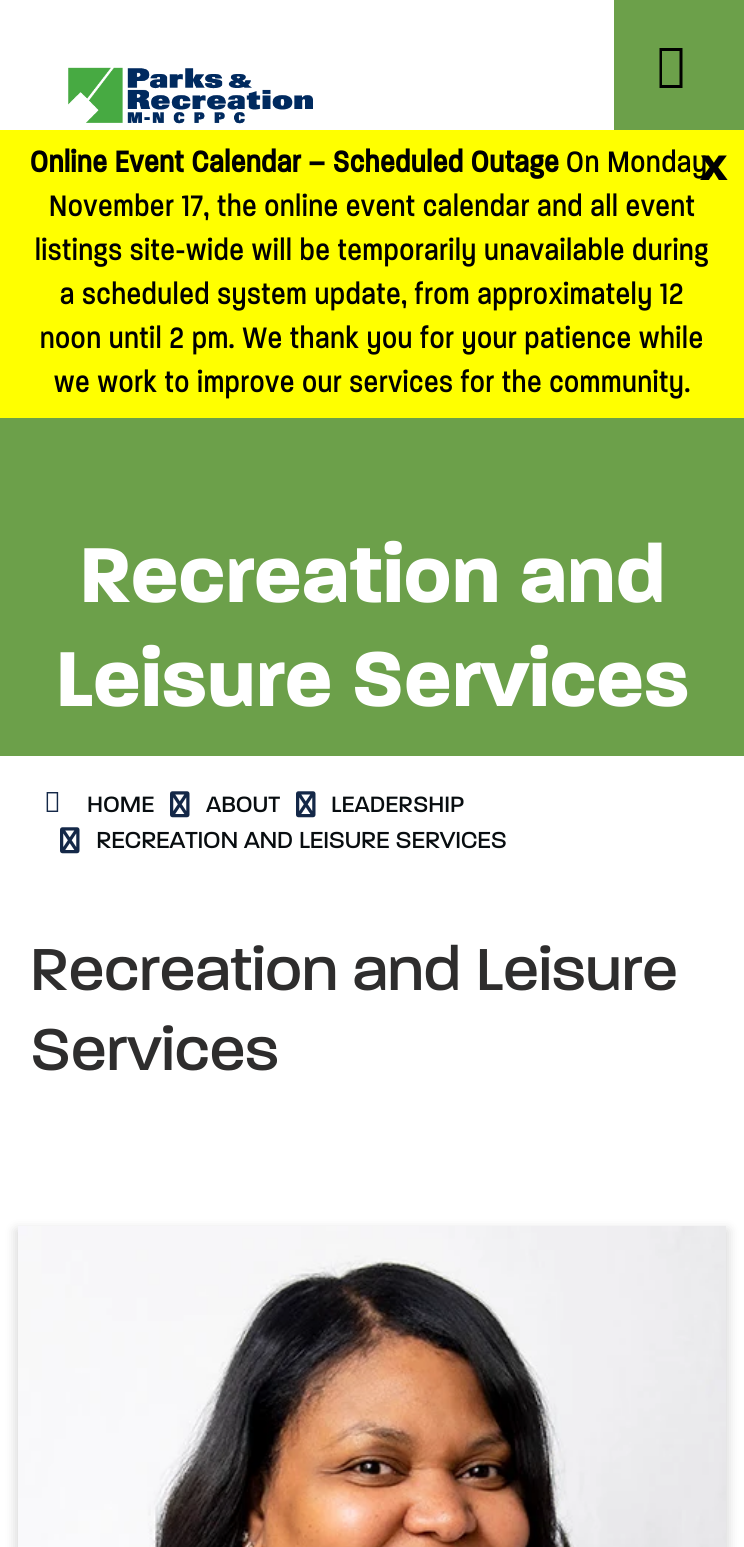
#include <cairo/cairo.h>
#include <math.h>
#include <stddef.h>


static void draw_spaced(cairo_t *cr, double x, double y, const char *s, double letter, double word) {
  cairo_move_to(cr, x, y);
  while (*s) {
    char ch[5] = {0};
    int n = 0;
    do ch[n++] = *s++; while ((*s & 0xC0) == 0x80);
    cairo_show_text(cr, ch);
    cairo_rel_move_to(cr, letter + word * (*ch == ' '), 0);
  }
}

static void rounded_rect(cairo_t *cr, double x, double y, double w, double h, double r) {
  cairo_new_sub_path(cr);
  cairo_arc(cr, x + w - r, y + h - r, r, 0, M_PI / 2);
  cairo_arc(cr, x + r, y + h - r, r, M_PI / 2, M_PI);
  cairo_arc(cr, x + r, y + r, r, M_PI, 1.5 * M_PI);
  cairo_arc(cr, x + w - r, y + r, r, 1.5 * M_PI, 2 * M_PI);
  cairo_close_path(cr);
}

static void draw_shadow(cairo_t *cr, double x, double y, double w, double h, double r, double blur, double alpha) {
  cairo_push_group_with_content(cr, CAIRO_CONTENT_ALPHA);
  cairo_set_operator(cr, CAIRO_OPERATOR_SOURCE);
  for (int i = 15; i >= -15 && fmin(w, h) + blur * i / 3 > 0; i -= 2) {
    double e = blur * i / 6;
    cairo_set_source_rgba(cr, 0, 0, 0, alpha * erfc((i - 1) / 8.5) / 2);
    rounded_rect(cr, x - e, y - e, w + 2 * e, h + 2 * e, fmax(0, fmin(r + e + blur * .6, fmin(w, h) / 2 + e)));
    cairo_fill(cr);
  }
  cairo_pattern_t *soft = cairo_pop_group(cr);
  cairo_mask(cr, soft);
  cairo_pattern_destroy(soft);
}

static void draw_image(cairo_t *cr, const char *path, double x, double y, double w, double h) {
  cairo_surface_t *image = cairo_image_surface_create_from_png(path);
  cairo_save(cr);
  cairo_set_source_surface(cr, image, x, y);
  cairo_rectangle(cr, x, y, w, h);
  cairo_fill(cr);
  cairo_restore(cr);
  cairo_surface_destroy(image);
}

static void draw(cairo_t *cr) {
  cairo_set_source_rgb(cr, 1, 1, 1);
  cairo_paint(cr);
  draw_image(cr, "images/1.png", 68, 67, 245, 57);
  cairo_set_source_rgb(cr, 108 / 255.0, 160 / 255.0, 74 / 255.0);
  cairo_rectangle(cr, 614, 0, 130, 130);
  cairo_fill(cr);
  cairo_set_source_rgb(cr, 0, 0, 0);
  cairo_new_path(cr);
  cairo_move_to(cr, 659.5, 88);
  cairo_line_to(cr, 659.5, 48);
  cairo_line_to(cr, 682.5, 48);
  cairo_line_to(cr, 682.5, 88);
  cairo_close_path(cr);
  cairo_move_to(cr, 662, 85);
  cairo_line_to(cr, 679.5, 85);
  cairo_line_to(cr, 679.5, 51);
  cairo_line_to(cr, 662, 51);
  cairo_close_path(cr);
  cairo_fill(cr);
  cairo_set_source_rgb(cr, 1, 1, 0);
  cairo_rectangle(cr, 0, 130, 744, 288);
  cairo_fill(cr);
  cairo_set_source_rgb(cr, 108 / 255.0, 160 / 255.0, 74 / 255.0);
  cairo_rectangle(cr, 0, 418, 744, 338);
  cairo_fill(cr);
  draw_image(cr, "images/2.png", 46, 792, 13, 20);
  draw_image(cr, "images/3.png", 170, 791, 20, 27);
  draw_image(cr, "images/3.png", 296, 791, 20, 27);
  draw_image(cr, "images/3.png", 60, 827, 20, 27);
  cairo_set_source_rgb(cr, 0, 0, 0);
  draw_shadow(cr, 16, 1230, 712, 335, 0, 6, 0.16);
  draw_image(cr, "images/4.png", 18, 1226, 708, 321);
  cairo_select_font_face(cr, "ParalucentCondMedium", CAIRO_FONT_SLANT_NORMAL, CAIRO_FONT_WEIGHT_BOLD);
  cairo_set_font_size(cr, 32);
  cairo_set_source_rgb(cr, 0, 0, 0);
  draw_spaced(cr, 30, 172, "Online Event Calendar – Scheduled Outage", 0.8, 0);
  cairo_select_font_face(cr, "ParalucentCondMedium Medium", CAIRO_FONT_SLANT_NORMAL, CAIRO_FONT_WEIGHT_NORMAL);
  draw_spaced(cr, 566, 172, "On Monday,", 0.8, 0);
  draw_spaced(cr, 49, 216, "November 17, the online event calendar and all event", 0.8, 0);
  draw_spaced(cr, 35, 260, "listings site-wide will be temporarily unavailable during", 0.8, 0);
  draw_spaced(cr, 60, 304, "a scheduled system update, from approximately 12", 0.8, 0);
  draw_spaced(cr, 40, 348, "noon until 2 pm. We thank you for your patience while", 0.8, 0);
  draw_spaced(cr, 54, 392, "we work to improve our services for the community.", 0.8, 0);
  cairo_select_font_face(cr, "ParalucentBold", CAIRO_FONT_SLANT_NORMAL, CAIRO_FONT_WEIGHT_BOLD);
  cairo_set_font_size(cr, 48);
  cairo_move_to(cr, 700, 180);
  cairo_show_text(cr, "×");
  cairo_set_font_size(cr, 84);
  cairo_set_source_rgb(cr, 1, 1, 1);
  cairo_move_to(cr, 79, 602);
  cairo_show_text(cr, "Recreation and");
  cairo_move_to(cr, 55, 706);
  cairo_show_text(cr, "Leisure Services");
  cairo_select_font_face(cr, "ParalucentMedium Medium", CAIRO_FONT_SLANT_NORMAL, CAIRO_FONT_WEIGHT_NORMAL);
  cairo_set_font_size(cr, 24);
  cairo_set_source_rgb(cr, 8 / 255.0, 13 / 255.0, 16 / 255.0);
  cairo_move_to(cr, 87, 812);
  cairo_show_text(cr, "HOME");
  cairo_move_to(cr, 206, 812);
  cairo_show_text(cr, "ABOUT");
  cairo_move_to(cr, 331, 812);
  cairo_show_text(cr, "LEADERSHIP");
  cairo_select_font_face(cr, "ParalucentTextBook", CAIRO_FONT_SLANT_NORMAL, CAIRO_FONT_WEIGHT_BOLD);
  cairo_move_to(cr, 96, 848);
  cairo_show_text(cr, "RECREATION AND LEISURE SERVICES");
  cairo_select_font_face(cr, "ParalucentMedium Medium", CAIRO_FONT_SLANT_NORMAL, CAIRO_FONT_WEIGHT_NORMAL);
  cairo_set_font_size(cr, 64);
  cairo_set_source_rgb(cr, 46 / 255.0, 45 / 255.0, 45 / 255.0);
  cairo_move_to(cr, 30, 990);
  cairo_show_text(cr, "Recreation and Leisure");
  cairo_move_to(cr, 30, 1070);
  cairo_show_text(cr, "Services");
}

int main(void) {
  cairo_surface_t *surface = cairo_image_surface_create(CAIRO_FORMAT_RGB24, 744, 1547);
  cairo_t *cr = cairo_create(surface);
  cairo_font_options_t *options = cairo_font_options_create();
  cairo_font_options_set_hint_metrics(options, CAIRO_HINT_METRICS_OFF);
  cairo_font_options_set_hint_style(options, CAIRO_HINT_STYLE_NONE);
  cairo_set_font_options(cr, options);
  cairo_set_miter_limit(cr, 4);
  draw(cr);
  cairo_surface_write_to_png(surface, "out.png");
  cairo_font_options_destroy(options);
  cairo_destroy(cr);
  cairo_surface_destroy(surface);
  return 0;
}
